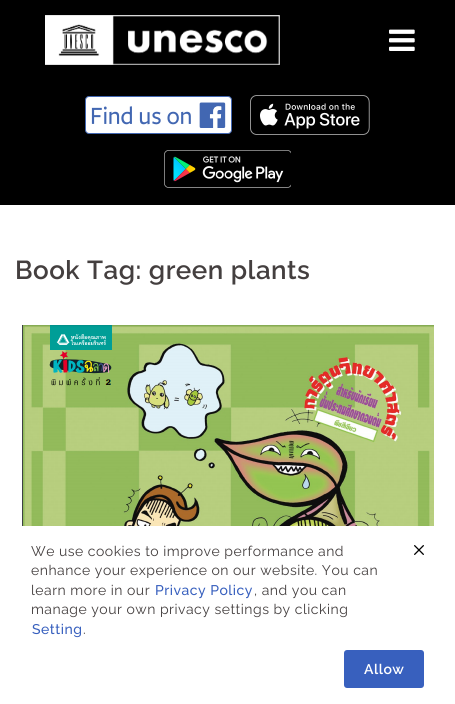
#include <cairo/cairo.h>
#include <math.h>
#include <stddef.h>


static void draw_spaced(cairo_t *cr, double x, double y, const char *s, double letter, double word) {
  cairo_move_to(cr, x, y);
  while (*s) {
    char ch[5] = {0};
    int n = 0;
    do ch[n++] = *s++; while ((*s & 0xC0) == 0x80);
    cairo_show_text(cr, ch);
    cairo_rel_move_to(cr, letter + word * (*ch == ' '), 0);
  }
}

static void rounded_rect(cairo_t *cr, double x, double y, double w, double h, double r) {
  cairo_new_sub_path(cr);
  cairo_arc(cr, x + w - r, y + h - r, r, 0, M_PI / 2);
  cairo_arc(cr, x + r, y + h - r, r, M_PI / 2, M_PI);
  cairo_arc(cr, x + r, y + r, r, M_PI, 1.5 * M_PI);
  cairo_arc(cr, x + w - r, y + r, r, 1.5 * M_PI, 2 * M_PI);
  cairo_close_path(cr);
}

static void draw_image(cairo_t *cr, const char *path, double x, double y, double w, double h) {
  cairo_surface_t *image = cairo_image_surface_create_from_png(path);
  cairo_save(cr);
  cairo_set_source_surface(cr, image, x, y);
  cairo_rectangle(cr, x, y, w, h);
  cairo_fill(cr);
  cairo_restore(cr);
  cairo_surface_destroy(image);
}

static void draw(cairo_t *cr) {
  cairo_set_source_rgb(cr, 1, 1, 1);
  cairo_paint(cr);
  cairo_set_source_rgb(cr, 0, 0, 0);
  cairo_rectangle(cr, 0, 0, 455, 205);
  cairo_fill(cr);
  cairo_set_source_rgb(cr, 1, 1, 1);
  rounded_rect(cr, 85.5, 96.5, 146, 37, 3.5);
  cairo_fill_preserve(cr);
  cairo_set_source_rgb(cr, 66 / 255.0, 103 / 255.0, 178 / 255.0);
  cairo_set_line_width(cr, 1);
  cairo_stroke(cr);
  draw_image(cr, "images/1.png", 91, 102, 135, 26);
  draw_image(cr, "images/2.png", 250, 95, 120, 40);
  draw_image(cr, "images/3.png", 164, 150, 127, 38);
  draw_image(cr, "images/4.png", 45, 15, 235, 50);
  draw_image(cr, "images/5.png", 389, 29, 26, 22);
  draw_image(cr, "images/6.png", 22, 325, 412, 201);
  draw_image(cr, "images/7.png", 414, 545, 10, 10);
  cairo_set_source_rgb(cr, 56 / 255.0, 96 / 255.0, 190 / 255.0);
  rounded_rect(cr, 344, 650, 80, 38, 3);
  cairo_fill(cr);
  cairo_select_font_face(cr, "Raleway SemiBold", CAIRO_FONT_SLANT_NORMAL, CAIRO_FONT_WEIGHT_NORMAL);
  cairo_set_font_size(cr, 26);
  cairo_set_source_rgb(cr, 68 / 255.0, 63 / 255.0, 63 / 255.0);
  draw_spaced(cr, 15, 279, "Book Tag: green plants", 0.5, 0);
  cairo_select_font_face(cr, "Raleway", CAIRO_FONT_SLANT_NORMAL, CAIRO_FONT_WEIGHT_NORMAL);
  cairo_set_font_size(cr, 14);
  draw_spaced(cr, 31, 556, "We use cookies to improve performance and", 0.5, 0);
  draw_spaced(cr, 31, 575, "enhance your experience on our website. You can", 0.5, 0);
  draw_spaced(cr, 31, 595, "learn more in our", 0.5, 0);
  cairo_select_font_face(cr, "Raleway Medium", CAIRO_FONT_SLANT_NORMAL, CAIRO_FONT_WEIGHT_NORMAL);
  cairo_set_source_rgb(cr, 56 / 255.0, 96 / 255.0, 190 / 255.0);
  draw_spaced(cr, 155, 595, "Privacy Policy", 0.5, 0);
  cairo_select_font_face(cr, "Raleway", CAIRO_FONT_SLANT_NORMAL, CAIRO_FONT_WEIGHT_NORMAL);
  cairo_set_source_rgb(cr, 68 / 255.0, 63 / 255.0, 63 / 255.0);
  draw_spaced(cr, 254, 595, ", and you can", 0.5, 0);
  draw_spaced(cr, 31, 614, "manage your own privacy settings by clicking", 0.5, 0);
  cairo_select_font_face(cr, "Raleway Medium", CAIRO_FONT_SLANT_NORMAL, CAIRO_FONT_WEIGHT_NORMAL);
  cairo_set_source_rgb(cr, 56 / 255.0, 96 / 255.0, 190 / 255.0);
  draw_spaced(cr, 32, 634, "Setting", 0.5, 0);
  cairo_select_font_face(cr, "Raleway", CAIRO_FONT_SLANT_NORMAL, CAIRO_FONT_WEIGHT_NORMAL);
  cairo_set_source_rgb(cr, 68 / 255.0, 63 / 255.0, 63 / 255.0);
  draw_spaced(cr, 83, 634, ".", 0.5, 0);
  cairo_select_font_face(cr, "Raleway SemiBold", CAIRO_FONT_SLANT_NORMAL, CAIRO_FONT_WEIGHT_NORMAL);
  cairo_set_source_rgb(cr, 1, 1, 1);
  draw_spaced(cr, 364, 674, "Allow", 0.5, 0);
}

int main(void) {
  cairo_surface_t *surface = cairo_image_surface_create(CAIRO_FORMAT_RGB24, 455, 704);
  cairo_t *cr = cairo_create(surface);
  cairo_font_options_t *options = cairo_font_options_create();
  cairo_font_options_set_hint_metrics(options, CAIRO_HINT_METRICS_OFF);
  cairo_font_options_set_hint_style(options, CAIRO_HINT_STYLE_NONE);
  cairo_set_font_options(cr, options);
  cairo_set_miter_limit(cr, 4);
  draw(cr);
  cairo_surface_write_to_png(surface, "out.png");
  cairo_font_options_destroy(options);
  cairo_destroy(cr);
  cairo_surface_destroy(surface);
  return 0;
}
